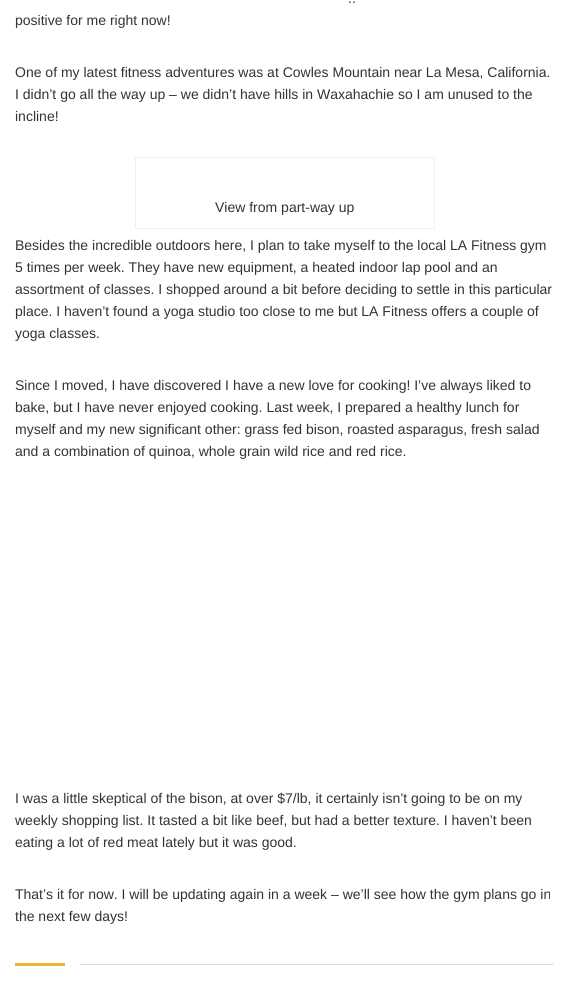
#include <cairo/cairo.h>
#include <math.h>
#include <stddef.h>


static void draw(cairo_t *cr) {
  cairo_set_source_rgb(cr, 1, 1, 1);
  cairo_paint(cr);
  cairo_rectangle(cr, 135.5, 157.5, 299, 71);
  cairo_set_source_rgb(cr, 240 / 255.0, 240 / 255.0, 240 / 255.0);
  cairo_set_line_width(cr, 1);
  cairo_stroke(cr);
  cairo_set_source_rgb(cr, 234 / 255.0, 184 / 255.0, 48 / 255.0);
  cairo_rectangle(cr, 15, 963, 50, 3);
  cairo_fill(cr);
  cairo_set_source_rgb(cr, 220 / 255.0, 220 / 255.0, 220 / 255.0);
  cairo_rectangle(cr, 80, 964, 474, 1);
  cairo_fill(cr);
  cairo_select_font_face(cr, "Liberation Sans", CAIRO_FONT_SLANT_NORMAL, CAIRO_FONT_WEIGHT_NORMAL);
  cairo_set_font_size(cr, 14);
  cairo_set_source_rgb(cr, 51 / 255.0, 51 / 255.0, 51 / 255.0);
  cairo_move_to(cr, 348, 3);
  cairo_show_text(cr, "..");
  cairo_move_to(cr, 15, 25);
  cairo_show_text(cr, "positive for me right now!");
  cairo_move_to(cr, 15, 77);
  cairo_show_text(cr, "One of my latest fitness adventures was at Cowles Mountain near La Mesa, California.");
  cairo_move_to(cr, 15, 99);
  cairo_show_text(cr, "I didn’t go all the way up – we didn’t have hills in Waxahachie so I am unused to the");
  cairo_move_to(cr, 15, 121);
  cairo_show_text(cr, "incline!");
  cairo_move_to(cr, 215, 212);
  cairo_show_text(cr, "View from part-way up");
  cairo_move_to(cr, 15, 250);
  cairo_show_text(cr, "Besides the incredible outdoors here, I plan to take myself to the local LA Fitness gym");
  cairo_move_to(cr, 15, 272);
  cairo_show_text(cr, "5 times per week. They have new equipment, a heated indoor lap pool and an");
  cairo_move_to(cr, 15, 294);
  cairo_show_text(cr, "assortment of classes. I shopped around a bit before deciding to settle in this particular");
  cairo_move_to(cr, 15, 316);
  cairo_show_text(cr, "place. I haven’t found a yoga studio too close to me but LA Fitness offers a couple of");
  cairo_move_to(cr, 15, 338);
  cairo_show_text(cr, "yoga classes.");
  cairo_move_to(cr, 15, 390);
  cairo_show_text(cr, "Since I moved, I have discovered I have a new love for cooking! I’ve always liked to");
  cairo_move_to(cr, 15, 412);
  cairo_show_text(cr, "bake, but I have never enjoyed cooking. Last week, I prepared a healthy lunch for");
  cairo_move_to(cr, 15, 434);
  cairo_show_text(cr, "myself and my new significant other: grass fed bison, roasted asparagus, fresh salad");
  cairo_move_to(cr, 15, 456);
  cairo_show_text(cr, "and a combination of quinoa, whole grain wild rice and red rice.");
  cairo_move_to(cr, 15, 803);
  cairo_show_text(cr, "I was a little skeptical of the bison, at over $7/lb, it certainly isn’t going to be on my");
  cairo_move_to(cr, 15, 825);
  cairo_show_text(cr, "weekly shopping list. It tasted a bit like beef, but had a better texture. I haven’t been");
  cairo_move_to(cr, 15, 847);
  cairo_show_text(cr, "eating a lot of red meat lately but it was good.");
  cairo_move_to(cr, 15, 899);
  cairo_show_text(cr, "That’s it for now. I will be updating again in a week – we’ll see how the gym plans go in");
  cairo_move_to(cr, 15, 921);
  cairo_show_text(cr, "the next few days!");
}

int main(void) {
  cairo_surface_t *surface = cairo_image_surface_create(CAIRO_FORMAT_RGB24, 569, 1004);
  cairo_t *cr = cairo_create(surface);
  cairo_font_options_t *options = cairo_font_options_create();
  cairo_font_options_set_hint_metrics(options, CAIRO_HINT_METRICS_OFF);
  cairo_font_options_set_hint_style(options, CAIRO_HINT_STYLE_NONE);
  cairo_set_font_options(cr, options);
  cairo_set_miter_limit(cr, 4);
  draw(cr);
  cairo_surface_write_to_png(surface, "out.png");
  cairo_font_options_destroy(options);
  cairo_destroy(cr);
  cairo_surface_destroy(surface);
  return 0;
}
